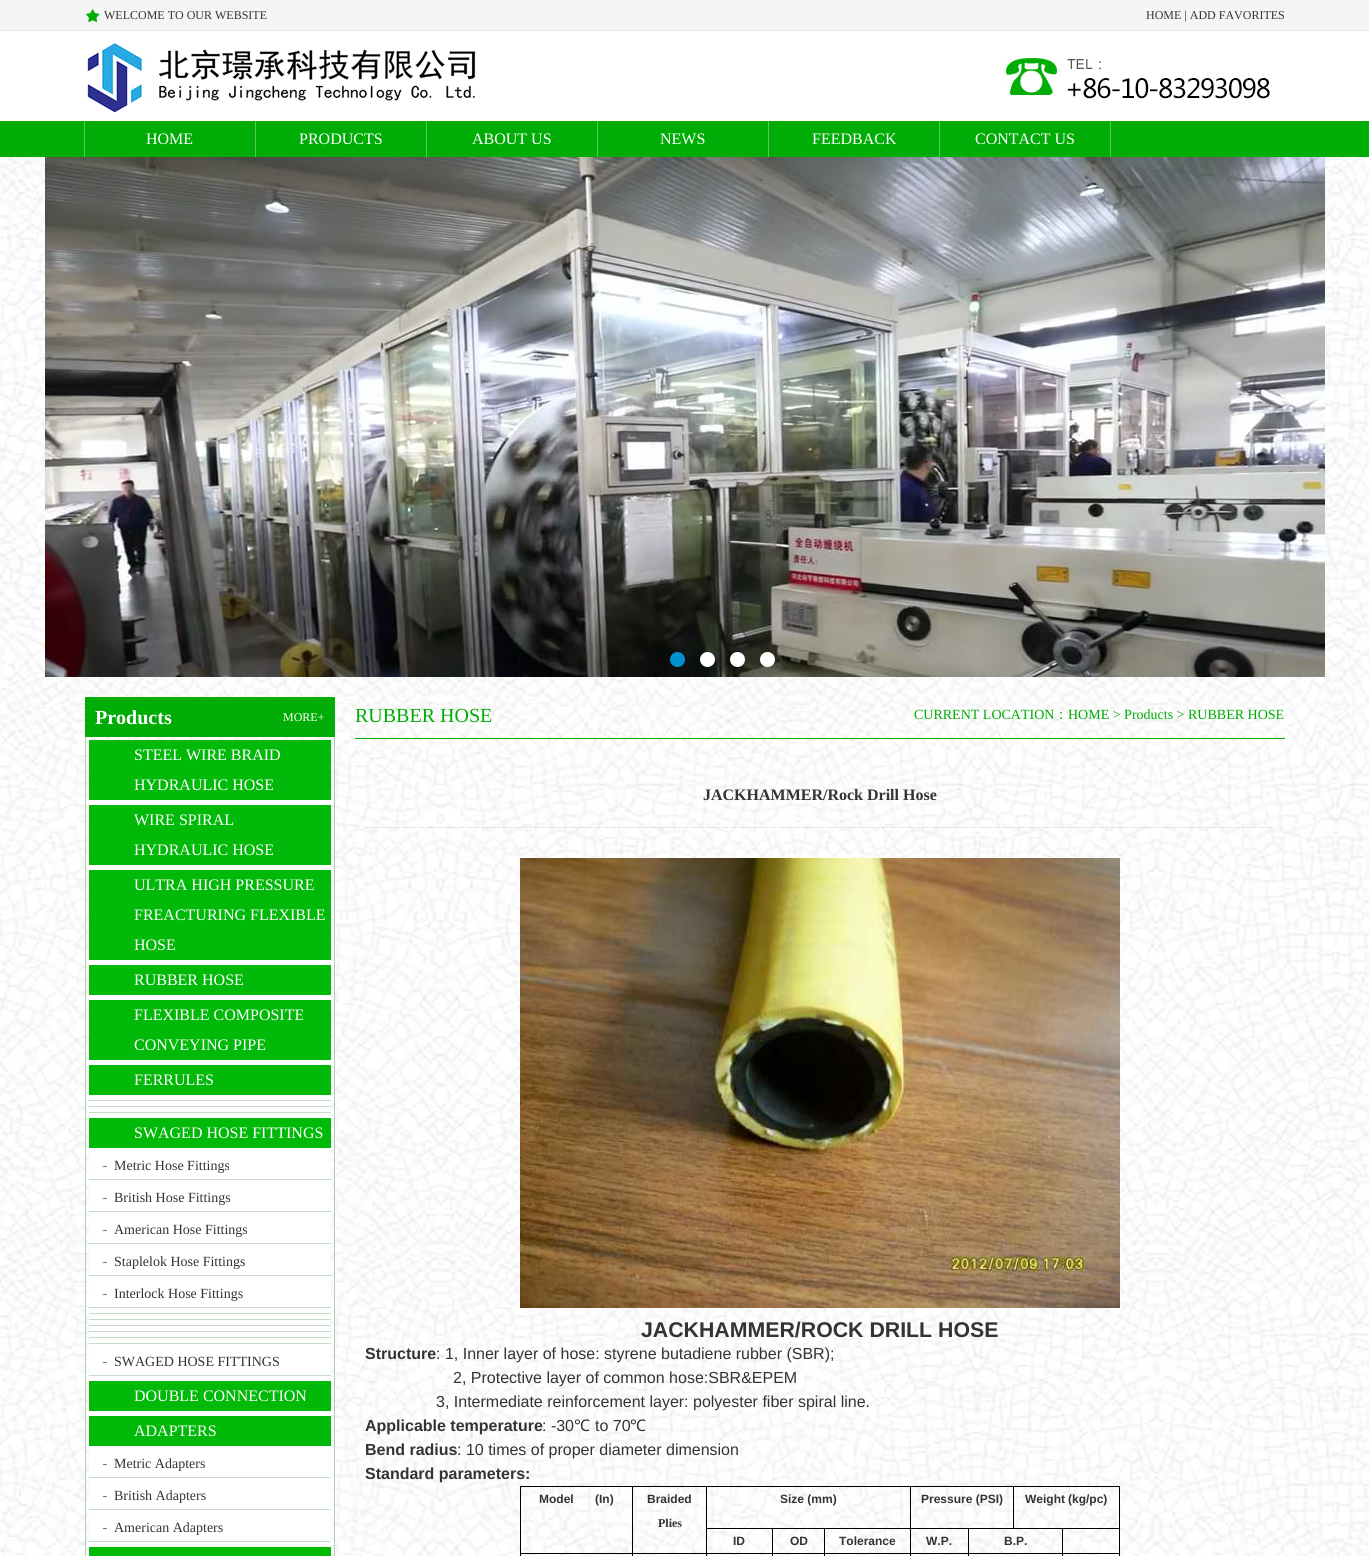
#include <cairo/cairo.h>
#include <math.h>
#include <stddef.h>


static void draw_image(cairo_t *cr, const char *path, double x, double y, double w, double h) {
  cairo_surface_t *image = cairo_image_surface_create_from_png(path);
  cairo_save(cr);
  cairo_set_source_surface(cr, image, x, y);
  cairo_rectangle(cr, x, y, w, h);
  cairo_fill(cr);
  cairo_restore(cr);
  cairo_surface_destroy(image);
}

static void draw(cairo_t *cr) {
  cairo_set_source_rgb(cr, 1, 1, 1);
  cairo_paint(cr);
  cairo_set_source_rgb(cr, 245 / 255.0, 245 / 255.0, 245 / 255.0);
  cairo_rectangle(cr, 0, 0, 1369, 30);
  cairo_fill(cr);
  cairo_set_source_rgb(cr, 232 / 255.0, 232 / 255.0, 232 / 255.0);
  cairo_rectangle(cr, 0, 30, 1369, 1);
  cairo_fill(cr);
  draw_image(cr, "images/1.png", 85, 9, 15, 14);
  draw_image(cr, "images/2.png", 87, 43, 1183, 70);
  cairo_set_source_rgb(cr, 0, 173 / 255.0, 6 / 255.0);
  cairo_rectangle(cr, 0, 121, 1369, 36);
  cairo_fill(cr);
  cairo_set_source_rgb(cr, 84 / 255.0, 200 / 255.0, 88 / 255.0);
  cairo_rectangle(cr, 84, 121, 1, 36);
  cairo_fill(cr);
  cairo_rectangle(cr, 255, 121, 1, 36);
  cairo_fill(cr);
  cairo_rectangle(cr, 426, 121, 1, 36);
  cairo_fill(cr);
  cairo_rectangle(cr, 597, 121, 1, 36);
  cairo_fill(cr);
  cairo_rectangle(cr, 768, 121, 1, 36);
  cairo_fill(cr);
  cairo_rectangle(cr, 939, 121, 1, 36);
  cairo_fill(cr);
  cairo_rectangle(cr, 1110, 121, 1, 36);
  cairo_fill(cr);
  draw_image(cr, "images/4.png", 0, 157, 1369, 1399);
  draw_image(cr, "images/3.png", 45, 157, 1280, 520);
  cairo_set_source_rgb(cr, 0, 146 / 255.0, 206 / 255.0);
  cairo_arc(cr, 677.5, 659.5, 7.5, 0, 2 * M_PI);
  cairo_fill(cr);
  cairo_set_source_rgb(cr, 1, 1, 1);
  cairo_arc(cr, 707.5, 659.5, 7.5, 0, 2 * M_PI);
  cairo_fill(cr);
  cairo_arc(cr, 737.5, 659.5, 7.5, 0, 2 * M_PI);
  cairo_fill(cr);
  cairo_arc(cr, 767.5, 659.5, 7.5, 0, 2 * M_PI);
  cairo_fill(cr);
  cairo_set_source_rgb(cr, 0, 173 / 255.0, 6 / 255.0);
  cairo_rectangle(cr, 85, 697, 250, 40);
  cairo_fill(cr);
  cairo_set_source_rgb(cr, 176 / 255.0, 206 / 255.0, 180 / 255.0);
  cairo_rectangle(cr, 334, 737, 1, 819);
  cairo_fill(cr);
  cairo_rectangle(cr, 85, 737, 1, 819);
  cairo_fill(cr);
  cairo_set_source_rgb(cr, 1, 1, 1);
  cairo_rectangle(cr, 89, 800, 242, 5);
  cairo_fill(cr);
  cairo_set_source_rgb(cr, 1 / 255.0, 185 / 255.0, 8 / 255.0);
  cairo_rectangle(cr, 89, 740, 242, 60);
  cairo_fill(cr);
  cairo_set_source_rgb(cr, 1, 1, 1);
  cairo_rectangle(cr, 89, 865, 242, 5);
  cairo_fill(cr);
  cairo_set_source_rgb(cr, 1 / 255.0, 185 / 255.0, 8 / 255.0);
  cairo_rectangle(cr, 89, 805, 242, 60);
  cairo_fill(cr);
  cairo_set_source_rgb(cr, 1, 1, 1);
  cairo_rectangle(cr, 89, 960, 242, 5);
  cairo_fill(cr);
  cairo_set_source_rgb(cr, 1 / 255.0, 185 / 255.0, 8 / 255.0);
  cairo_rectangle(cr, 89, 870, 242, 90);
  cairo_fill(cr);
  cairo_set_source_rgb(cr, 1, 1, 1);
  cairo_rectangle(cr, 89, 995, 242, 5);
  cairo_fill(cr);
  cairo_set_source_rgb(cr, 1 / 255.0, 185 / 255.0, 8 / 255.0);
  cairo_rectangle(cr, 89, 965, 242, 30);
  cairo_fill(cr);
  cairo_set_source_rgb(cr, 1, 1, 1);
  cairo_rectangle(cr, 89, 1060, 242, 5);
  cairo_fill(cr);
  cairo_set_source_rgb(cr, 1 / 255.0, 185 / 255.0, 8 / 255.0);
  cairo_rectangle(cr, 89, 1000, 242, 60);
  cairo_fill(cr);
  cairo_set_source_rgb(cr, 1, 1, 1);
  cairo_rectangle(cr, 89, 1095, 242, 5);
  cairo_fill(cr);
  cairo_set_source_rgb(cr, 1 / 255.0, 185 / 255.0, 8 / 255.0);
  cairo_rectangle(cr, 89, 1065, 242, 30);
  cairo_fill(cr);
  cairo_set_source_rgb(cr, 1, 1, 1);
  cairo_rectangle(cr, 89, 1101, 242, 5);
  cairo_fill(cr);
  cairo_set_source_rgb(cr, 198 / 255.0, 221 / 255.0, 201 / 255.0);
  cairo_rectangle(cr, 89, 1100, 242, 1);
  cairo_fill(cr);
  cairo_set_source_rgb(cr, 1, 1, 1);
  cairo_rectangle(cr, 89, 1107, 242, 5);
  cairo_fill(cr);
  cairo_set_source_rgb(cr, 198 / 255.0, 221 / 255.0, 201 / 255.0);
  cairo_rectangle(cr, 89, 1106, 242, 1);
  cairo_fill(cr);
  cairo_set_source_rgb(cr, 1, 1, 1);
  cairo_rectangle(cr, 89, 1113, 242, 5);
  cairo_fill(cr);
  cairo_set_source_rgb(cr, 198 / 255.0, 221 / 255.0, 201 / 255.0);
  cairo_rectangle(cr, 89, 1112, 242, 1);
  cairo_fill(cr);
  cairo_set_source_rgb(cr, 1, 1, 1);
  cairo_rectangle(cr, 89, 1148, 242, 165);
  cairo_fill(cr);
  cairo_set_source_rgb(cr, 1 / 255.0, 185 / 255.0, 8 / 255.0);
  cairo_rectangle(cr, 89, 1118, 242, 30);
  cairo_fill(cr);
  draw_image(cr, "images/5.png", 101, 1166, 7, 1);
  cairo_set_source_rgb(cr, 198 / 255.0, 221 / 255.0, 201 / 255.0);
  cairo_rectangle(cr, 89, 1179, 242, 1);
  cairo_fill(cr);
  draw_image(cr, "images/5.png", 101, 1198, 7, 1);
  cairo_rectangle(cr, 89, 1211, 242, 1);
  cairo_fill(cr);
  draw_image(cr, "images/5.png", 101, 1230, 7, 1);
  cairo_rectangle(cr, 89, 1243, 242, 1);
  cairo_fill(cr);
  draw_image(cr, "images/5.png", 101, 1262, 7, 1);
  cairo_rectangle(cr, 89, 1275, 242, 1);
  cairo_fill(cr);
  draw_image(cr, "images/5.png", 101, 1294, 7, 1);
  cairo_rectangle(cr, 89, 1307, 242, 1);
  cairo_fill(cr);
  cairo_set_source_rgb(cr, 1, 1, 1);
  cairo_rectangle(cr, 89, 1314, 242, 5);
  cairo_fill(cr);
  cairo_set_source_rgb(cr, 198 / 255.0, 221 / 255.0, 201 / 255.0);
  cairo_rectangle(cr, 89, 1313, 242, 1);
  cairo_fill(cr);
  cairo_set_source_rgb(cr, 1, 1, 1);
  cairo_rectangle(cr, 89, 1320, 242, 5);
  cairo_fill(cr);
  cairo_set_source_rgb(cr, 198 / 255.0, 221 / 255.0, 201 / 255.0);
  cairo_rectangle(cr, 89, 1319, 242, 1);
  cairo_fill(cr);
  cairo_set_source_rgb(cr, 1, 1, 1);
  cairo_rectangle(cr, 89, 1326, 242, 5);
  cairo_fill(cr);
  cairo_set_source_rgb(cr, 198 / 255.0, 221 / 255.0, 201 / 255.0);
  cairo_rectangle(cr, 89, 1325, 242, 1);
  cairo_fill(cr);
  cairo_set_source_rgb(cr, 1, 1, 1);
  cairo_rectangle(cr, 89, 1332, 242, 5);
  cairo_fill(cr);
  cairo_set_source_rgb(cr, 198 / 255.0, 221 / 255.0, 201 / 255.0);
  cairo_rectangle(cr, 89, 1331, 242, 1);
  cairo_fill(cr);
  cairo_set_source_rgb(cr, 1, 1, 1);
  cairo_rectangle(cr, 89, 1338, 242, 5);
  cairo_fill(cr);
  cairo_set_source_rgb(cr, 198 / 255.0, 221 / 255.0, 201 / 255.0);
  cairo_rectangle(cr, 89, 1337, 242, 1);
  cairo_fill(cr);
  cairo_set_source_rgb(cr, 1, 1, 1);
  cairo_rectangle(cr, 89, 1344, 242, 37);
  cairo_fill(cr);
  cairo_set_source_rgb(cr, 198 / 255.0, 221 / 255.0, 201 / 255.0);
  cairo_rectangle(cr, 89, 1343, 242, 1);
  cairo_fill(cr);
  draw_image(cr, "images/5.png", 101, 1362, 7, 1);
  cairo_rectangle(cr, 89, 1375, 242, 1);
  cairo_fill(cr);
  cairo_set_source_rgb(cr, 1, 1, 1);
  cairo_rectangle(cr, 89, 1411, 242, 5);
  cairo_fill(cr);
  cairo_set_source_rgb(cr, 1 / 255.0, 185 / 255.0, 8 / 255.0);
  cairo_rectangle(cr, 89, 1381, 242, 30);
  cairo_fill(cr);
  cairo_set_source_rgb(cr, 1, 1, 1);
  cairo_rectangle(cr, 89, 1446, 242, 101);
  cairo_fill(cr);
  cairo_set_source_rgb(cr, 1 / 255.0, 185 / 255.0, 8 / 255.0);
  cairo_rectangle(cr, 89, 1416, 242, 30);
  cairo_fill(cr);
  draw_image(cr, "images/5.png", 101, 1464, 7, 1);
  cairo_set_source_rgb(cr, 198 / 255.0, 221 / 255.0, 201 / 255.0);
  cairo_rectangle(cr, 89, 1477, 242, 1);
  cairo_fill(cr);
  draw_image(cr, "images/5.png", 101, 1496, 7, 1);
  cairo_rectangle(cr, 89, 1509, 242, 1);
  cairo_fill(cr);
  draw_image(cr, "images/5.png", 101, 1528, 7, 1);
  cairo_rectangle(cr, 89, 1541, 242, 1);
  cairo_fill(cr);
  cairo_set_source_rgb(cr, 1 / 255.0, 185 / 255.0, 8 / 255.0);
  cairo_rectangle(cr, 89, 1547, 242, 9);
  cairo_fill(cr);
  cairo_set_source_rgb(cr, 0, 173 / 255.0, 6 / 255.0);
  cairo_rectangle(cr, 355, 738, 930, 1);
  cairo_fill(cr);
  cairo_new_path(cr);
  cairo_move_to(cr, 365, 827.5);
  cairo_line_to(cr, 1275, 827.5);
  cairo_set_source_rgb(cr, 212 / 255.0, 212 / 255.0, 212 / 255.0);
  cairo_set_line_width(cr, 1);
  cairo_set_dash(cr, (double[]){1, 1}, 2, 0);
  cairo_stroke(cr);
  draw_image(cr, "images/6.png", 520, 858, 600, 450);
  cairo_set_source_rgb(cr, 0, 0, 0);
  cairo_rectangle(cr, 520, 1486, 600, 1);
  cairo_fill(cr);
  cairo_rectangle(cr, 910, 1528, 210, 1);
  cairo_fill(cr);
  cairo_rectangle(cr, 1119, 1553, 1, 3);
  cairo_fill(cr);
  cairo_rectangle(cr, 1119, 1528, 1, 26);
  cairo_fill(cr);
  cairo_rectangle(cr, 1062, 1553, 1, 3);
  cairo_fill(cr);
  cairo_rectangle(cr, 1062, 1553, 58, 1);
  cairo_fill(cr);
  cairo_rectangle(cr, 1062, 1528, 1, 26);
  cairo_fill(cr);
  cairo_rectangle(cr, 968, 1553, 1, 3);
  cairo_fill(cr);
  cairo_rectangle(cr, 968, 1553, 95, 1);
  cairo_fill(cr);
  cairo_rectangle(cr, 968, 1528, 1, 26);
  cairo_fill(cr);
  cairo_rectangle(cr, 910, 1553, 1, 3);
  cairo_fill(cr);
  cairo_rectangle(cr, 910, 1553, 59, 1);
  cairo_fill(cr);
  cairo_rectangle(cr, 910, 1528, 1, 26);
  cairo_fill(cr);
  cairo_rectangle(cr, 910, 1486, 1, 43);
  cairo_fill(cr);
  cairo_rectangle(cr, 824, 1553, 1, 3);
  cairo_fill(cr);
  cairo_rectangle(cr, 824, 1553, 87, 1);
  cairo_fill(cr);
  cairo_rectangle(cr, 824, 1528, 1, 26);
  cairo_fill(cr);
  cairo_rectangle(cr, 772, 1553, 1, 3);
  cairo_fill(cr);
  cairo_rectangle(cr, 772, 1553, 53, 1);
  cairo_fill(cr);
  cairo_rectangle(cr, 772, 1528, 1, 26);
  cairo_fill(cr);
  cairo_rectangle(cr, 706, 1528, 205, 1);
  cairo_fill(cr);
  cairo_rectangle(cr, 706, 1553, 1, 3);
  cairo_fill(cr);
  cairo_rectangle(cr, 706, 1553, 67, 1);
  cairo_fill(cr);
  cairo_rectangle(cr, 706, 1486, 1, 68);
  cairo_fill(cr);
  cairo_rectangle(cr, 632, 1553, 1, 3);
  cairo_fill(cr);
  cairo_rectangle(cr, 632, 1553, 75, 1);
  cairo_fill(cr);
  cairo_rectangle(cr, 632, 1486, 1, 68);
  cairo_fill(cr);
  cairo_rectangle(cr, 520, 1553, 1, 3);
  cairo_fill(cr);
  cairo_rectangle(cr, 520, 1553, 113, 1);
  cairo_fill(cr);
  cairo_rectangle(cr, 520, 1486, 1, 68);
  cairo_fill(cr);
  cairo_rectangle(cr, 1013, 1486, 1, 43);
  cairo_fill(cr);
  cairo_rectangle(cr, 1119, 1486, 1, 43);
  cairo_fill(cr);
  cairo_select_font_face(cr, "Liberation Serif", CAIRO_FONT_SLANT_NORMAL, CAIRO_FONT_WEIGHT_NORMAL);
  cairo_set_font_size(cr, 12);
  cairo_set_source_rgb(cr, 51 / 255.0, 51 / 255.0, 51 / 255.0);
  cairo_move_to(cr, 104, 19);
  cairo_show_text(cr, "WELCOME TO OUR WEBSITE");
  cairo_move_to(cr, 1146, 19);
  cairo_show_text(cr, "HOME | ADD FAVORITES");
  cairo_set_font_size(cr, 16);
  cairo_set_source_rgb(cr, 1, 1, 1);
  cairo_move_to(cr, 146, 144);
  cairo_show_text(cr, "HOME");
  cairo_move_to(cr, 299, 144);
  cairo_show_text(cr, "PRODUCTS");
  cairo_move_to(cr, 472, 144);
  cairo_show_text(cr, "ABOUT US");
  cairo_move_to(cr, 660, 144);
  cairo_show_text(cr, "NEWS");
  cairo_move_to(cr, 812, 144);
  cairo_show_text(cr, "FEEDBACK");
  cairo_move_to(cr, 975, 144);
  cairo_show_text(cr, "CONTACT US");
  cairo_select_font_face(cr, "Liberation Serif", CAIRO_FONT_SLANT_NORMAL, CAIRO_FONT_WEIGHT_BOLD);
  cairo_set_font_size(cr, 20);
  cairo_move_to(cr, 95, 724);
  cairo_show_text(cr, "Products");
  cairo_select_font_face(cr, "Liberation Serif", CAIRO_FONT_SLANT_NORMAL, CAIRO_FONT_WEIGHT_NORMAL);
  cairo_set_font_size(cr, 12);
  cairo_move_to(cr, 283, 721);
  cairo_show_text(cr, "MORE+");
  cairo_set_font_size(cr, 16);
  cairo_move_to(cr, 134, 760);
  cairo_show_text(cr, "STEEL WIRE BRAID");
  cairo_move_to(cr, 134, 790);
  cairo_show_text(cr, "HYDRAULIC HOSE");
  cairo_move_to(cr, 134, 825);
  cairo_show_text(cr, "WIRE SPIRAL");
  cairo_move_to(cr, 134, 855);
  cairo_show_text(cr, "HYDRAULIC HOSE");
  cairo_move_to(cr, 134, 890);
  cairo_show_text(cr, "ULTRA HIGH PRESSURE");
  cairo_move_to(cr, 134, 920);
  cairo_show_text(cr, "FREACTURING FLEXIBLE");
  cairo_move_to(cr, 134, 950);
  cairo_show_text(cr, "HOSE");
  cairo_move_to(cr, 134, 985);
  cairo_show_text(cr, "RUBBER HOSE");
  cairo_move_to(cr, 134, 1020);
  cairo_show_text(cr, "FLEXIBLE COMPOSITE");
  cairo_move_to(cr, 134, 1050);
  cairo_show_text(cr, "CONVEYING PIPE");
  cairo_move_to(cr, 134, 1085);
  cairo_show_text(cr, "FERRULES");
  cairo_move_to(cr, 134, 1138);
  cairo_show_text(cr, "SWAGED HOSE FITTINGS");
  cairo_set_font_size(cr, 14);
  cairo_set_source_rgb(cr, 51 / 255.0, 51 / 255.0, 51 / 255.0);
  cairo_move_to(cr, 114, 1170);
  cairo_show_text(cr, "Metric Hose Fittings");
  cairo_move_to(cr, 114, 1202);
  cairo_show_text(cr, "British Hose Fittings");
  cairo_move_to(cr, 114, 1234);
  cairo_show_text(cr, "American Hose Fittings");
  cairo_move_to(cr, 114, 1266);
  cairo_show_text(cr, "Staplelok Hose Fittings");
  cairo_move_to(cr, 114, 1298);
  cairo_show_text(cr, "Interlock Hose Fittings");
  cairo_move_to(cr, 114, 1366);
  cairo_show_text(cr, "SWAGED HOSE FITTINGS");
  cairo_set_font_size(cr, 16);
  cairo_set_source_rgb(cr, 1, 1, 1);
  cairo_move_to(cr, 134, 1401);
  cairo_show_text(cr, "DOUBLE CONNECTION");
  cairo_move_to(cr, 134, 1436);
  cairo_show_text(cr, "ADAPTERS");
  cairo_set_font_size(cr, 14);
  cairo_set_source_rgb(cr, 51 / 255.0, 51 / 255.0, 51 / 255.0);
  cairo_move_to(cr, 114, 1468);
  cairo_show_text(cr, "Metric Adapters");
  cairo_move_to(cr, 114, 1500);
  cairo_show_text(cr, "British Adapters");
  cairo_move_to(cr, 114, 1532);
  cairo_show_text(cr, "American Adapters");
  cairo_set_font_size(cr, 20);
  cairo_set_source_rgb(cr, 0, 173 / 255.0, 6 / 255.0);
  cairo_move_to(cr, 355, 722);
  cairo_show_text(cr, "RUBBER HOSE");
  cairo_set_font_size(cr, 14);
  cairo_move_to(cr, 914, 719);
  cairo_show_text(cr, "CURRENT LOCATION");
  cairo_select_font_face(cr, "WenQuanYi Zen Hei Medium", CAIRO_FONT_SLANT_NORMAL, CAIRO_FONT_WEIGHT_NORMAL);
  cairo_move_to(cr, 1054, 719);
  cairo_show_text(cr, "：");
  cairo_select_font_face(cr, "Liberation Serif", CAIRO_FONT_SLANT_NORMAL, CAIRO_FONT_WEIGHT_NORMAL);
  cairo_move_to(cr, 1068, 719);
  cairo_show_text(cr, "HOME > Products > RUBBER HOSE");
  cairo_select_font_face(cr, "Liberation Serif", CAIRO_FONT_SLANT_NORMAL, CAIRO_FONT_WEIGHT_BOLD);
  cairo_set_font_size(cr, 16);
  cairo_set_source_rgb(cr, 51 / 255.0, 51 / 255.0, 51 / 255.0);
  cairo_move_to(cr, 703, 800);
  cairo_show_text(cr, "JACKHAMMER/Rock Drill Hose");
  cairo_select_font_face(cr, "Liberation Sans", CAIRO_FONT_SLANT_NORMAL, CAIRO_FONT_WEIGHT_BOLD);
  cairo_set_font_size(cr, 21.3);
  cairo_move_to(cr, 641, 1337);
  cairo_show_text(cr, "JACKHAMMER/ROCK DRILL HOSE");
  cairo_set_font_size(cr, 16);
  cairo_move_to(cr, 365, 1359);
  cairo_show_text(cr, "Structure");
  cairo_select_font_face(cr, "Liberation Sans", CAIRO_FONT_SLANT_NORMAL, CAIRO_FONT_WEIGHT_NORMAL);
  cairo_move_to(cr, 436, 1359);
  cairo_show_text(cr, ": 1, Inner layer of hose: styrene butadiene rubber (SBR);");
  cairo_move_to(cr, 453, 1383);
  cairo_show_text(cr, "2, Protective layer of common hose:SBR&EPEM");
  cairo_move_to(cr, 436, 1407);
  cairo_show_text(cr, "3, Intermediate reinforcement layer: polyester fiber spiral line.");
  cairo_select_font_face(cr, "Liberation Sans", CAIRO_FONT_SLANT_NORMAL, CAIRO_FONT_WEIGHT_BOLD);
  cairo_move_to(cr, 365, 1431);
  cairo_show_text(cr, "Applicable temperature");
  cairo_select_font_face(cr, "Liberation Sans", CAIRO_FONT_SLANT_NORMAL, CAIRO_FONT_WEIGHT_NORMAL);
  cairo_move_to(cr, 542, 1431);
  cairo_show_text(cr, ": -30");
  cairo_select_font_face(cr, "Noto Sans", CAIRO_FONT_SLANT_NORMAL, CAIRO_FONT_WEIGHT_NORMAL);
  cairo_move_to(cr, 574, 1431);
  cairo_show_text(cr, "℃");
  cairo_select_font_face(cr, "Liberation Sans", CAIRO_FONT_SLANT_NORMAL, CAIRO_FONT_WEIGHT_NORMAL);
  cairo_move_to(cr, 595, 1431);
  cairo_show_text(cr, "to 70");
  cairo_select_font_face(cr, "Noto Sans", CAIRO_FONT_SLANT_NORMAL, CAIRO_FONT_WEIGHT_NORMAL);
  cairo_move_to(cr, 630, 1431);
  cairo_show_text(cr, "℃");
  cairo_select_font_face(cr, "Liberation Sans", CAIRO_FONT_SLANT_NORMAL, CAIRO_FONT_WEIGHT_BOLD);
  cairo_move_to(cr, 365, 1455);
  cairo_show_text(cr, "Bend radius");
  cairo_select_font_face(cr, "Liberation Sans", CAIRO_FONT_SLANT_NORMAL, CAIRO_FONT_WEIGHT_NORMAL);
  cairo_move_to(cr, 457, 1455);
  cairo_show_text(cr, ": 10 times of proper diameter dimension");
  cairo_select_font_face(cr, "Liberation Sans", CAIRO_FONT_SLANT_NORMAL, CAIRO_FONT_WEIGHT_BOLD);
  cairo_move_to(cr, 365, 1479);
  cairo_show_text(cr, "Standard parameters:");
  cairo_set_font_size(cr, 12);
  cairo_move_to(cr, 539, 1503);
  cairo_show_text(cr, "Model");
  cairo_move_to(cr, 595, 1503);
  cairo_show_text(cr, "(In)");
  cairo_move_to(cr, 647, 1503);
  cairo_show_text(cr, "Braided");
  cairo_select_font_face(cr, "Liberation Serif", CAIRO_FONT_SLANT_NORMAL, CAIRO_FONT_WEIGHT_BOLD);
  cairo_move_to(cr, 658, 1527);
  cairo_show_text(cr, "Plies");
  cairo_select_font_face(cr, "Liberation Sans", CAIRO_FONT_SLANT_NORMAL, CAIRO_FONT_WEIGHT_BOLD);
  cairo_move_to(cr, 780, 1503);
  cairo_show_text(cr, "Size (mm)");
  cairo_move_to(cr, 921, 1503);
  cairo_show_text(cr, "Pressure (PSI)");
  cairo_move_to(cr, 1025, 1503);
  cairo_show_text(cr, "Weight");
  cairo_move_to(cr, 1068, 1503);
  cairo_show_text(cr, "(kg/pc)");
  cairo_move_to(cr, 733, 1545);
  cairo_show_text(cr, "ID");
  cairo_move_to(cr, 790, 1545);
  cairo_show_text(cr, "OD");
  cairo_move_to(cr, 839, 1545);
  cairo_show_text(cr, "Tolerance");
  cairo_move_to(cr, 926, 1545);
  cairo_show_text(cr, "W.P.");
  cairo_move_to(cr, 1004, 1545);
  cairo_show_text(cr, "B.P.");
}

int main(void) {
  cairo_surface_t *surface = cairo_image_surface_create(CAIRO_FORMAT_RGB24, 1369, 1556);
  cairo_t *cr = cairo_create(surface);
  cairo_font_options_t *options = cairo_font_options_create();
  cairo_font_options_set_hint_metrics(options, CAIRO_HINT_METRICS_OFF);
  cairo_font_options_set_hint_style(options, CAIRO_HINT_STYLE_NONE);
  cairo_set_font_options(cr, options);
  cairo_set_miter_limit(cr, 4);
  draw(cr);
  cairo_surface_write_to_png(surface, "out.png");
  cairo_font_options_destroy(options);
  cairo_destroy(cr);
  cairo_surface_destroy(surface);
  return 0;
}
